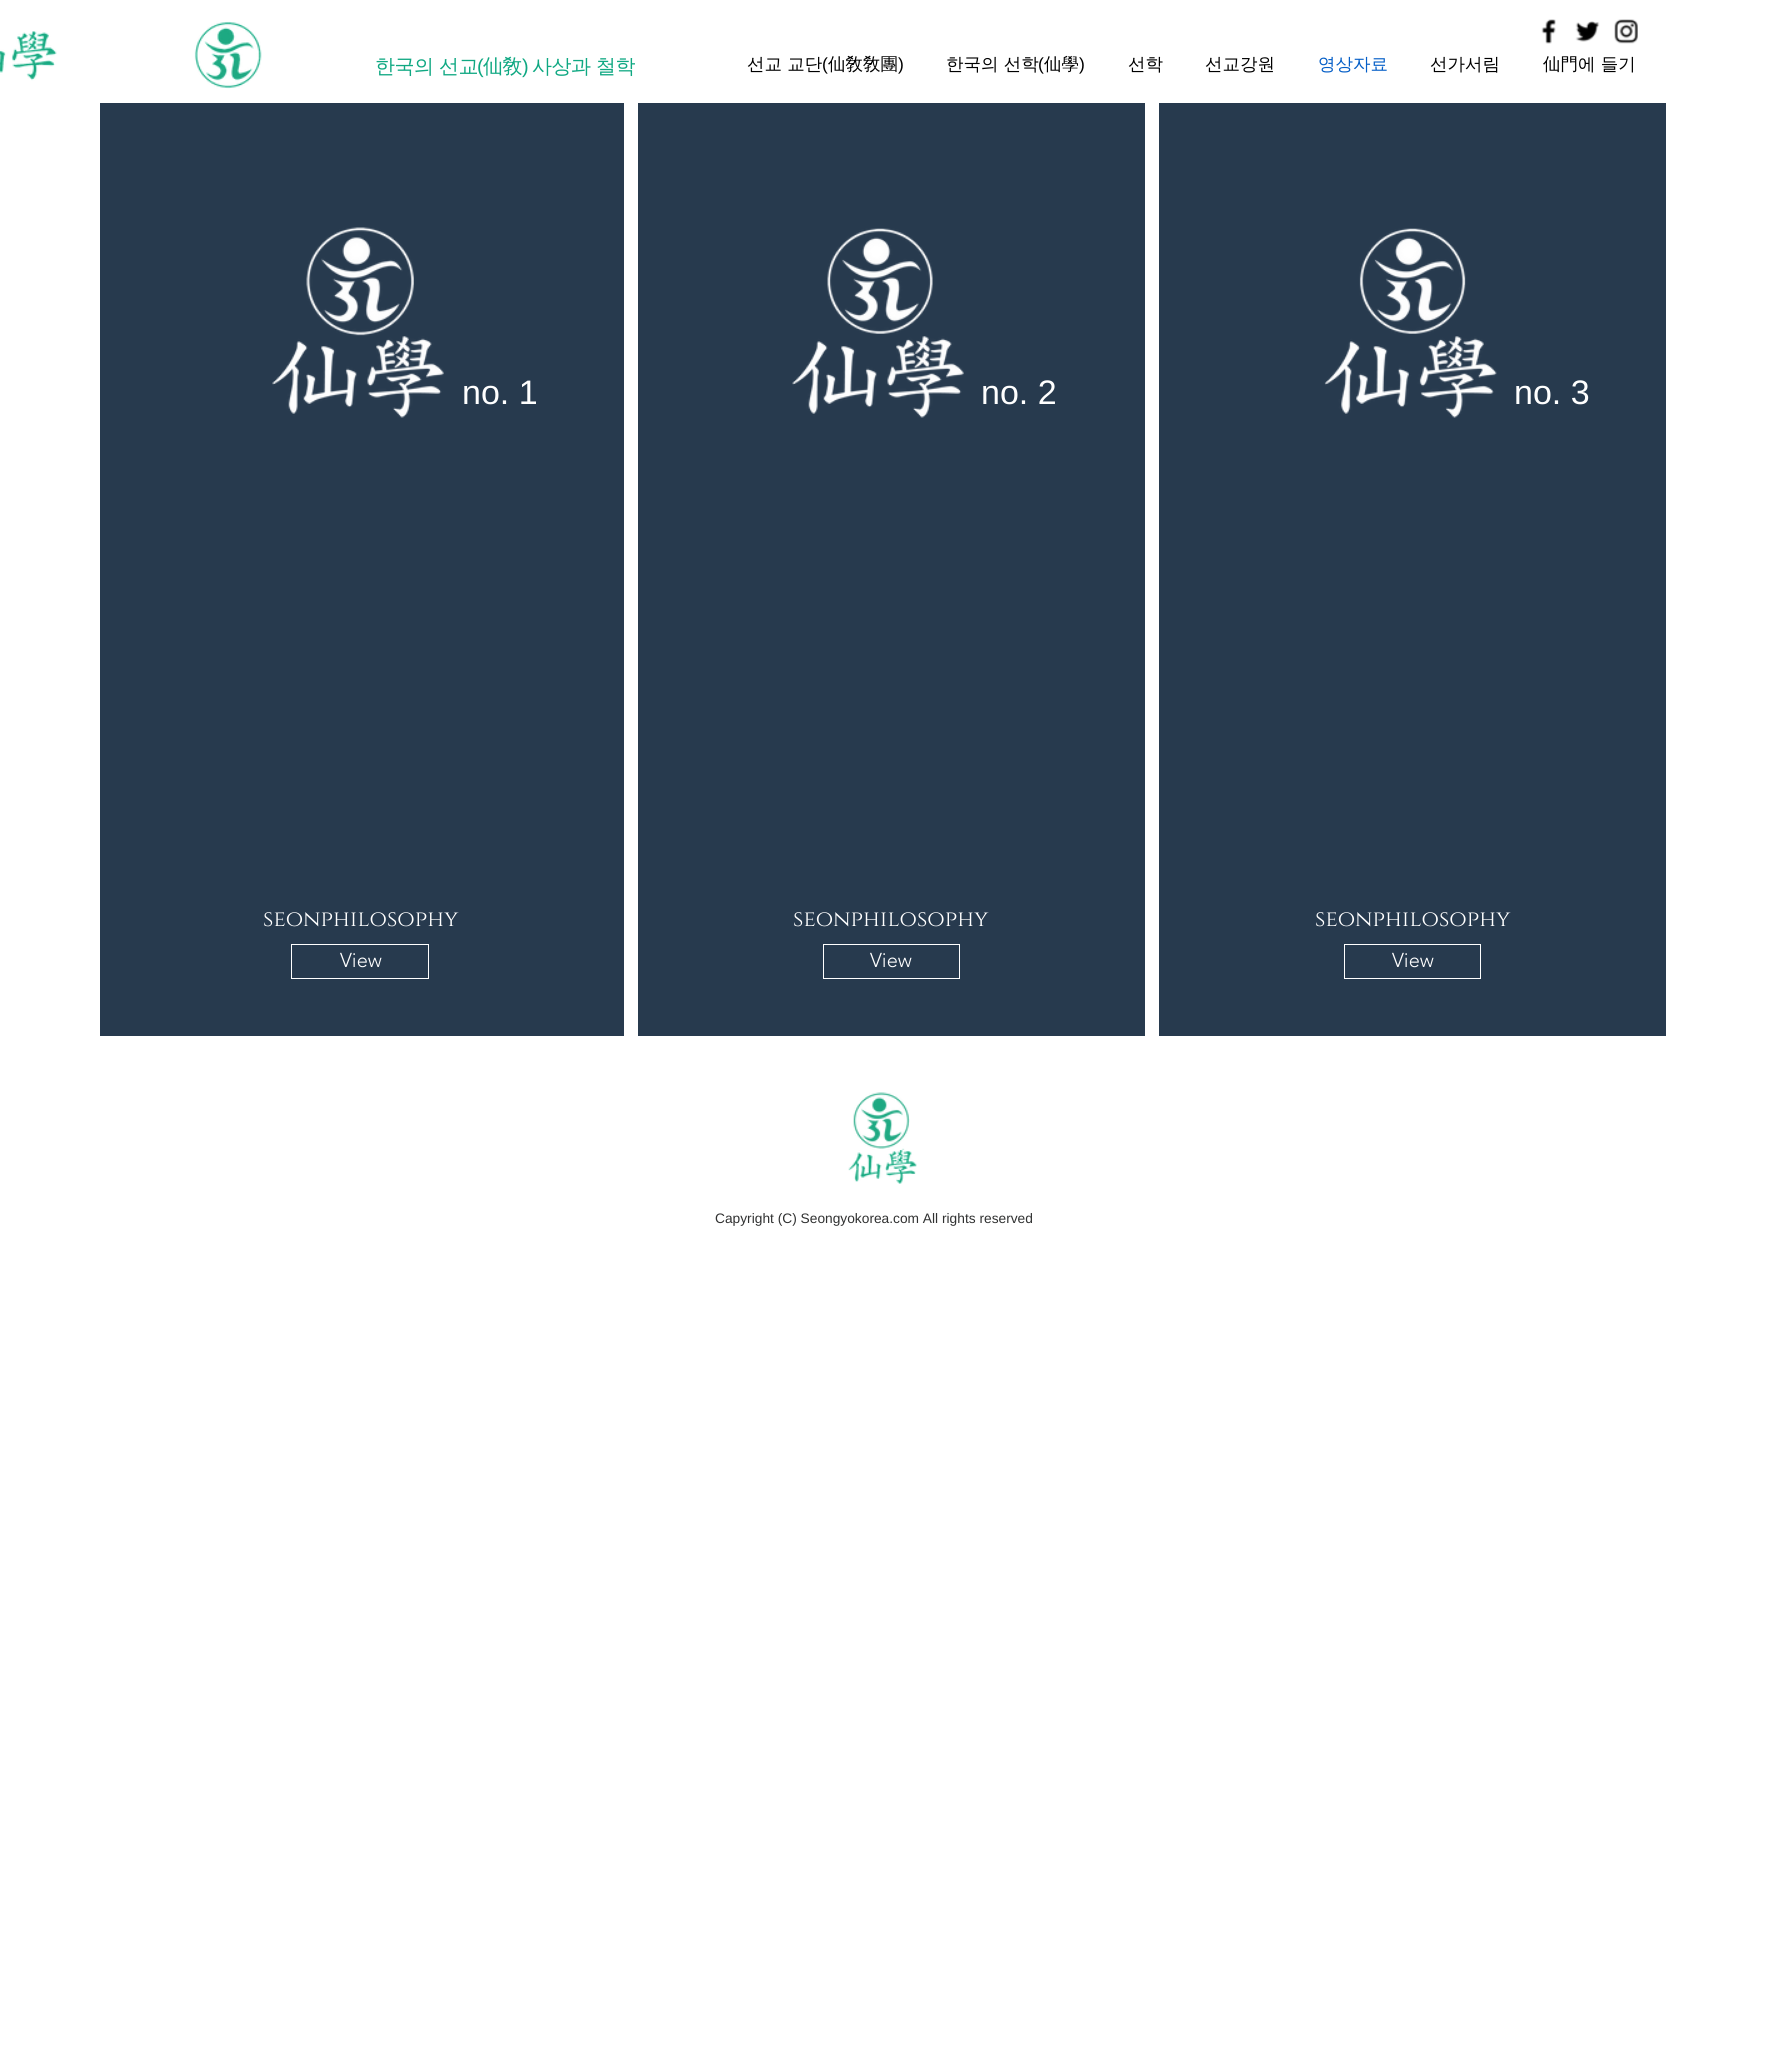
#include <cairo/cairo.h>
#include <math.h>
#include <stddef.h>


static void draw_spaced(cairo_t *cr, double x, double y, const char *s, double letter, double word) {
  cairo_move_to(cr, x, y);
  while (*s) {
    char ch[5] = {0};
    int n = 0;
    do ch[n++] = *s++; while ((*s & 0xC0) == 0x80);
    cairo_show_text(cr, ch);
    cairo_rel_move_to(cr, letter + word * (*ch == ' '), 0);
  }
}

static void draw_image(cairo_t *cr, const char *path, double x, double y, double w, double h) {
  cairo_surface_t *image = cairo_image_surface_create_from_png(path);
  cairo_save(cr);
  cairo_set_source_surface(cr, image, x, y);
  cairo_rectangle(cr, x, y, w, h);
  cairo_fill(cr);
  cairo_restore(cr);
  cairo_surface_destroy(image);
}

static void draw(cairo_t *cr) {
  cairo_set_source_rgb(cr, 1, 1, 1);
  cairo_paint(cr);
  draw_image(cr, "images/1.png", 0, 31, 57, 50);
  draw_image(cr, "images/2.png", 194, 21, 68, 68);
  draw_image(cr, "images/3.png", 1541, 19, 15, 25);
  draw_image(cr, "images/4.png", 1575, 21, 25, 21);
  draw_image(cr, "images/5.png", 1614, 19, 24, 25);
  cairo_set_source_rgb(cr, 39 / 255.0, 58 / 255.0, 78 / 255.0);
  cairo_rectangle(cr, 100, 103, 524, 933);
  cairo_fill(cr);
  draw_image(cr, "images/6.png", 306, 227, 108, 109);
  draw_image(cr, "images/7.png", 272, 336, 172, 82);
  cairo_rectangle(cr, 291.5, 944.5, 137, 34);
  cairo_set_source_rgb(cr, 1, 1, 1);
  cairo_set_line_width(cr, 1);
  cairo_stroke(cr);
  cairo_set_source_rgb(cr, 39 / 255.0, 58 / 255.0, 78 / 255.0);
  cairo_rectangle(cr, 638, 103, 507, 933);
  cairo_fill(cr);
  draw_image(cr, "images/8.png", 827, 228, 106, 106);
  draw_image(cr, "images/9.png", 792, 336, 172, 82);
  cairo_rectangle(cr, 823.5, 944.5, 136, 34);
  cairo_set_source_rgb(cr, 1, 1, 1);
  cairo_stroke(cr);
  cairo_set_source_rgb(cr, 39 / 255.0, 58 / 255.0, 78 / 255.0);
  cairo_rectangle(cr, 1159, 103, 507, 933);
  cairo_fill(cr);
  draw_image(cr, "images/10.png", 1359, 228, 107, 106);
  draw_image(cr, "images/11.png", 1324, 336, 173, 82);
  cairo_rectangle(cr, 1344.5, 944.5, 136, 34);
  cairo_set_source_rgb(cr, 1, 1, 1);
  cairo_stroke(cr);
  draw_image(cr, "images/12.png", 853, 1092, 57, 58);
  draw_image(cr, "images/13.png", 848, 1150, 69, 34);
  cairo_select_font_face(cr, "WenQuanYi Zen Hei Medium", CAIRO_FONT_SLANT_NORMAL, CAIRO_FONT_WEIGHT_NORMAL);
  cairo_set_font_size(cr, 20);
  cairo_set_source_rgb(cr, 15 / 255.0, 168 / 255.0, 130 / 255.0);
  draw_spaced(cr, 375, 73, "한국의 선교", -0.5, 0);
  cairo_select_font_face(cr, "Liberation Sans", CAIRO_FONT_SLANT_NORMAL, CAIRO_FONT_WEIGHT_NORMAL);
  draw_spaced(cr, 477, 73, "(", -0.5, 0);
  cairo_select_font_face(cr, "WenQuanYi Zen Hei Medium", CAIRO_FONT_SLANT_NORMAL, CAIRO_FONT_WEIGHT_NORMAL);
  draw_spaced(cr, 483, 73, "仙敎", -0.5, 0);
  cairo_select_font_face(cr, "Liberation Sans", CAIRO_FONT_SLANT_NORMAL, CAIRO_FONT_WEIGHT_NORMAL);
  draw_spaced(cr, 522, 73, ")", -0.5, 0);
  cairo_select_font_face(cr, "WenQuanYi Zen Hei Medium", CAIRO_FONT_SLANT_NORMAL, CAIRO_FONT_WEIGHT_NORMAL);
  draw_spaced(cr, 532, 73, "사상과 철학", -0.5, 0);
  cairo_set_font_size(cr, 17.5);
  cairo_set_source_rgb(cr, 0, 0, 0);
  cairo_move_to(cr, 747, 70);
  cairo_show_text(cr, "선교 교단");
  cairo_select_font_face(cr, "Liberation Sans", CAIRO_FONT_SLANT_NORMAL, CAIRO_FONT_WEIGHT_NORMAL);
  cairo_move_to(cr, 822, 70);
  cairo_show_text(cr, "(");
  cairo_select_font_face(cr, "WenQuanYi Zen Hei Medium", CAIRO_FONT_SLANT_NORMAL, CAIRO_FONT_WEIGHT_NORMAL);
  cairo_move_to(cr, 828, 70);
  cairo_show_text(cr, "仙敎敎團");
  cairo_select_font_face(cr, "Liberation Sans", CAIRO_FONT_SLANT_NORMAL, CAIRO_FONT_WEIGHT_NORMAL);
  cairo_move_to(cr, 898, 70);
  cairo_show_text(cr, ")");
  cairo_select_font_face(cr, "WenQuanYi Zen Hei Medium", CAIRO_FONT_SLANT_NORMAL, CAIRO_FONT_WEIGHT_NORMAL);
  cairo_move_to(cr, 946, 70);
  cairo_show_text(cr, "한국의 선학");
  cairo_select_font_face(cr, "Liberation Sans", CAIRO_FONT_SLANT_NORMAL, CAIRO_FONT_WEIGHT_NORMAL);
  cairo_move_to(cr, 1038, 70);
  cairo_show_text(cr, "(");
  cairo_select_font_face(cr, "WenQuanYi Zen Hei Medium", CAIRO_FONT_SLANT_NORMAL, CAIRO_FONT_WEIGHT_NORMAL);
  cairo_move_to(cr, 1044, 70);
  cairo_show_text(cr, "仙學");
  cairo_select_font_face(cr, "Liberation Sans", CAIRO_FONT_SLANT_NORMAL, CAIRO_FONT_WEIGHT_NORMAL);
  cairo_move_to(cr, 1079, 70);
  cairo_show_text(cr, ")");
  cairo_select_font_face(cr, "WenQuanYi Zen Hei Medium", CAIRO_FONT_SLANT_NORMAL, CAIRO_FONT_WEIGHT_NORMAL);
  cairo_move_to(cr, 1128, 70);
  cairo_show_text(cr, "선학");
  cairo_move_to(cr, 1205, 70);
  cairo_show_text(cr, "선교강원");
  cairo_set_source_rgb(cr, 4 / 255.0, 94 / 255.0, 199 / 255.0);
  cairo_move_to(cr, 1318, 70);
  cairo_show_text(cr, "영상자료");
  cairo_set_source_rgb(cr, 0, 0, 0);
  cairo_move_to(cr, 1430, 70);
  cairo_show_text(cr, "선가서림");
  cairo_move_to(cr, 1543, 70);
  cairo_show_text(cr, "仙門에 들기");
  cairo_select_font_face(cr, "Liberation Sans", CAIRO_FONT_SLANT_NORMAL, CAIRO_FONT_WEIGHT_NORMAL);
  cairo_set_font_size(cr, 34);
  cairo_set_source_rgb(cr, 1, 1, 1);
  cairo_move_to(cr, 462, 404);
  cairo_show_text(cr, "no. 1");
  cairo_select_font_face(cr, "Cinzel", CAIRO_FONT_SLANT_NORMAL, CAIRO_FONT_WEIGHT_NORMAL);
  cairo_set_font_size(cr, 22.5);
  cairo_move_to(cr, 263, 926);
  cairo_show_text(cr, "seonphilosophy");
  cairo_select_font_face(cr, "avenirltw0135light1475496 Light", CAIRO_FONT_SLANT_NORMAL, CAIRO_FONT_WEIGHT_NORMAL);
  cairo_set_font_size(cr, 20);
  cairo_move_to(cr, 340, 967);
  cairo_show_text(cr, "View");
  cairo_select_font_face(cr, "Liberation Sans", CAIRO_FONT_SLANT_NORMAL, CAIRO_FONT_WEIGHT_NORMAL);
  cairo_set_font_size(cr, 34);
  cairo_move_to(cr, 981, 404);
  cairo_show_text(cr, "no. 2");
  cairo_select_font_face(cr, "Cinzel", CAIRO_FONT_SLANT_NORMAL, CAIRO_FONT_WEIGHT_NORMAL);
  cairo_set_font_size(cr, 22.5);
  cairo_move_to(cr, 793, 926);
  cairo_show_text(cr, "seonphilosophy");
  cairo_select_font_face(cr, "avenirltw0135light1475496 Light", CAIRO_FONT_SLANT_NORMAL, CAIRO_FONT_WEIGHT_NORMAL);
  cairo_set_font_size(cr, 20);
  cairo_move_to(cr, 870, 967);
  cairo_show_text(cr, "View");
  cairo_select_font_face(cr, "Liberation Sans", CAIRO_FONT_SLANT_NORMAL, CAIRO_FONT_WEIGHT_NORMAL);
  cairo_set_font_size(cr, 34);
  cairo_move_to(cr, 1514, 404);
  cairo_show_text(cr, "no. 3");
  cairo_select_font_face(cr, "Cinzel", CAIRO_FONT_SLANT_NORMAL, CAIRO_FONT_WEIGHT_NORMAL);
  cairo_set_font_size(cr, 22.5);
  cairo_move_to(cr, 1315, 926);
  cairo_show_text(cr, "seonphilosophy");
  cairo_select_font_face(cr, "avenirltw0135light1475496 Light", CAIRO_FONT_SLANT_NORMAL, CAIRO_FONT_WEIGHT_NORMAL);
  cairo_set_font_size(cr, 20);
  cairo_move_to(cr, 1392, 967);
  cairo_show_text(cr, "View");
  cairo_select_font_face(cr, "Liberation Sans", CAIRO_FONT_SLANT_NORMAL, CAIRO_FONT_WEIGHT_NORMAL);
  cairo_set_font_size(cr, 13.75);
  cairo_set_source_rgb(cr, 48 / 255.0, 49 / 255.0, 49 / 255.0);
  cairo_move_to(cr, 715, 1223);
  cairo_show_text(cr, "Capyright (C) Seongyokorea.com All rights reserved");
}

int main(void) {
  cairo_surface_t *surface = cairo_image_surface_create(CAIRO_FORMAT_RGB24, 1766, 2066);
  cairo_t *cr = cairo_create(surface);
  cairo_font_options_t *options = cairo_font_options_create();
  cairo_font_options_set_hint_metrics(options, CAIRO_HINT_METRICS_OFF);
  cairo_font_options_set_hint_style(options, CAIRO_HINT_STYLE_NONE);
  cairo_set_font_options(cr, options);
  cairo_set_miter_limit(cr, 4);
  draw(cr);
  cairo_surface_write_to_png(surface, "out.png");
  cairo_font_options_destroy(options);
  cairo_destroy(cr);
  cairo_surface_destroy(surface);
  return 0;
}
